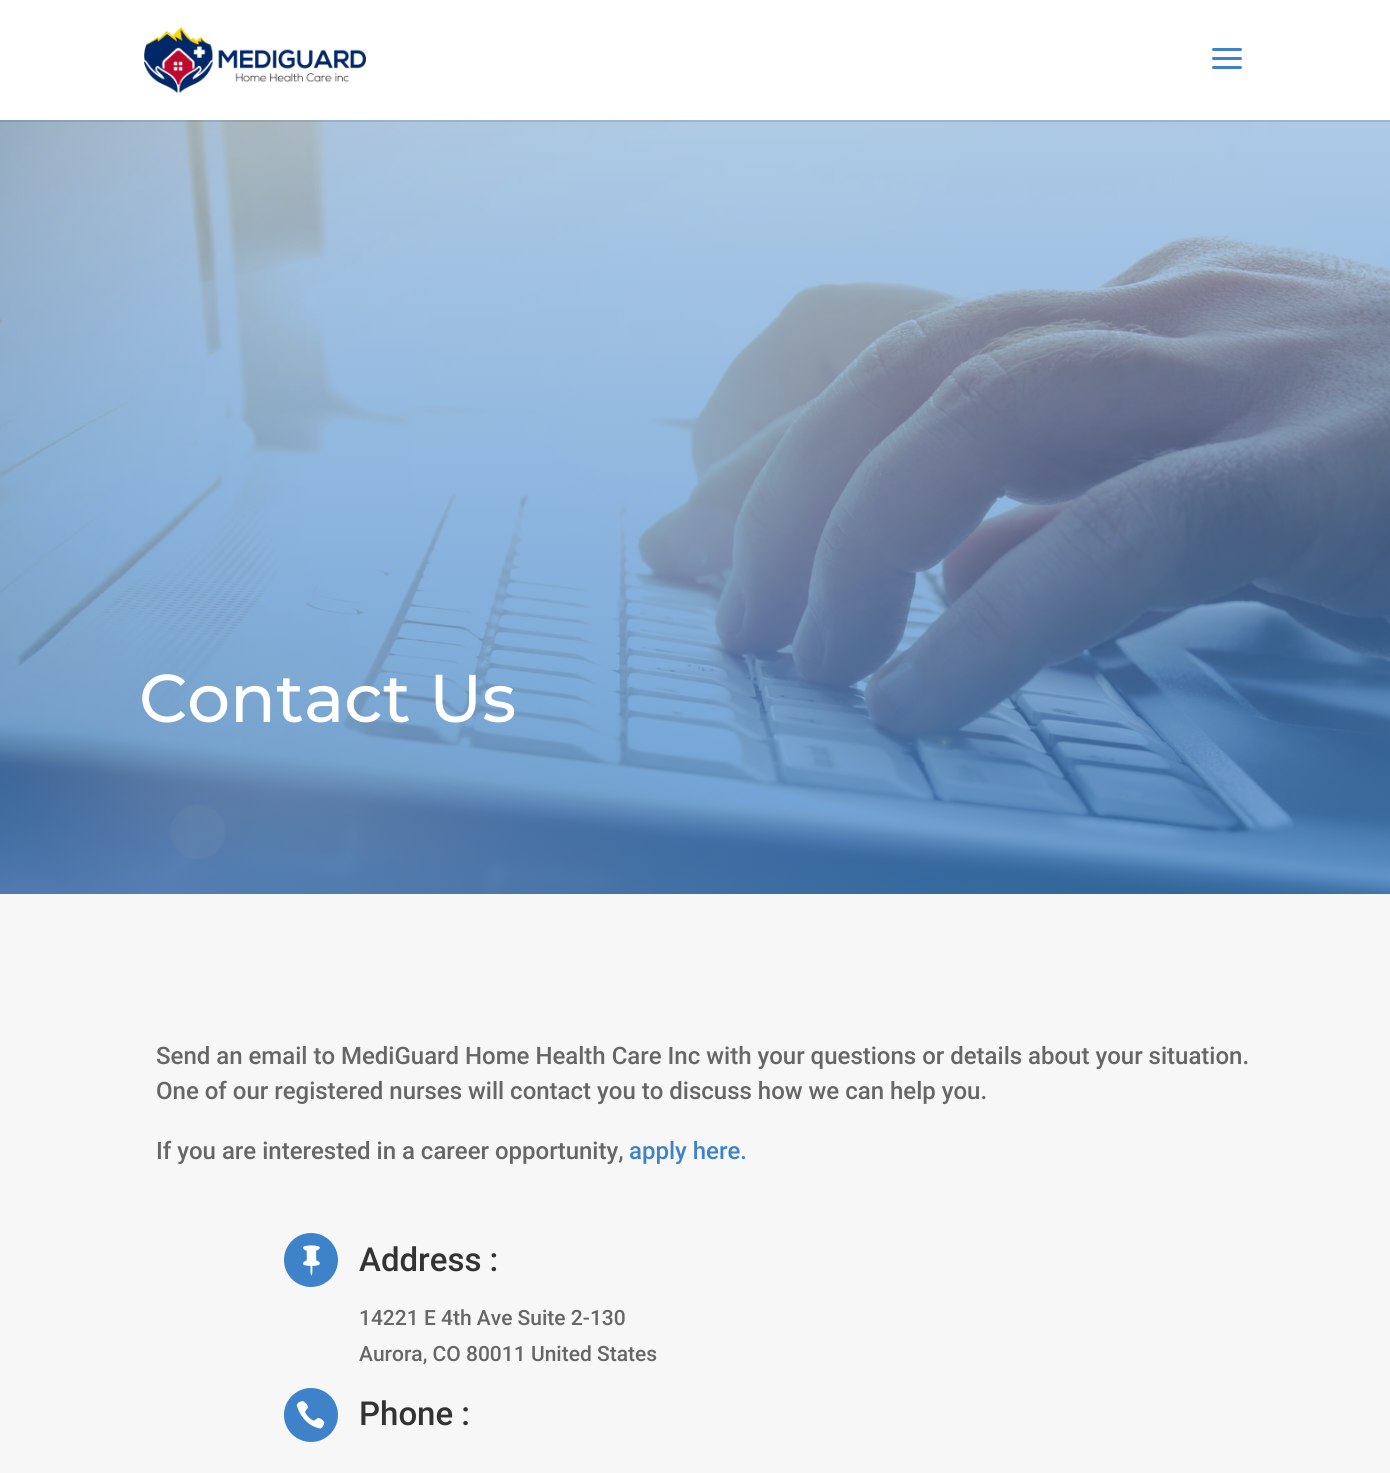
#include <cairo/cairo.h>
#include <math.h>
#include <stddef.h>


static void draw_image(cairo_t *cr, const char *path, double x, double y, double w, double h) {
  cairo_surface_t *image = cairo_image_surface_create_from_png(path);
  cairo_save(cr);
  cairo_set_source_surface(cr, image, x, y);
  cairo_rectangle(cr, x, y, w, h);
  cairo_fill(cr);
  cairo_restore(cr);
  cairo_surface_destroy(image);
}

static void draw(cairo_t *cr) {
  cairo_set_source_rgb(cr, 1, 1, 1);
  cairo_paint(cr);
  draw_image(cr, "images/3.png", 0, 120, 1390, 774);
  cairo_set_source_rgba(cr, 0, 0, 0, 0.1);
  cairo_new_path(cr);
  cairo_move_to(cr, 0, 120);
  cairo_line_to(cr, 0, 122);
  cairo_line_to(cr, 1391, 122);
  cairo_line_to(cr, 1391, 2);
  cairo_line_to(cr, 1390, 2);
  cairo_line_to(cr, 1390, 120);
  cairo_close_path(cr);
  cairo_fill(cr);
  draw_image(cr, "images/1.png", 144, 27, 222, 66);
  draw_image(cr, "images/2.png", 1212, 48, 30, 21);
  cairo_set_source_rgb(cr, 247 / 255.0, 247 / 255.0, 247 / 255.0);
  cairo_rectangle(cr, 0, 894, 1390, 579);
  cairo_fill(cr);
  cairo_set_source_rgb(cr, 62 / 255.0, 131 / 255.0, 201 / 255.0);
  cairo_arc(cr, 311, 1260, 27, 0, 2 * M_PI);
  cairo_fill(cr);
  draw_image(cr, "images/4.png", 303, 1245, 17, 31);
  cairo_arc(cr, 311, 1415, 27, 0, 2 * M_PI);
  cairo_fill(cr);
  draw_image(cr, "images/5.png", 296, 1401, 29, 28);
  cairo_select_font_face(cr, "Montserrat Medium", CAIRO_FONT_SLANT_NORMAL, CAIRO_FONT_WEIGHT_NORMAL);
  cairo_set_font_size(cr, 67.5);
  cairo_set_source_rgb(cr, 1, 1, 1);
  cairo_move_to(cr, 139, 722);
  cairo_show_text(cr, "Contact Us");
  cairo_select_font_face(cr, "Roboto Medium", CAIRO_FONT_SLANT_NORMAL, CAIRO_FONT_WEIGHT_NORMAL);
  cairo_set_font_size(cr, 24);
  cairo_set_source_rgb(cr, 102 / 255.0, 102 / 255.0, 102 / 255.0);
  cairo_move_to(cr, 156, 1064);
  cairo_show_text(cr, "Send an email to MediGuard Home Health Care Inc with your questions or details about your situation.");
  cairo_move_to(cr, 156, 1099);
  cairo_show_text(cr, "One of our registered nurses will contact you to discuss how we can help you.");
  cairo_move_to(cr, 156, 1159);
  cairo_show_text(cr, "If you are interested in a career opportunity,");
  cairo_set_source_rgb(cr, 62 / 255.0, 131 / 255.0, 201 / 255.0);
  cairo_move_to(cr, 629, 1159);
  cairo_show_text(cr, "apply here.");
  cairo_set_font_size(cr, 33);
  cairo_set_source_rgb(cr, 51 / 255.0, 51 / 255.0, 51 / 255.0);
  cairo_move_to(cr, 359, 1271);
  cairo_show_text(cr, "Address :");
  cairo_set_font_size(cr, 21);
  cairo_set_source_rgb(cr, 102 / 255.0, 102 / 255.0, 102 / 255.0);
  cairo_move_to(cr, 359, 1325);
  cairo_show_text(cr, "14221 E 4th Ave Suite 2-130");
  cairo_move_to(cr, 359, 1361);
  cairo_show_text(cr, "Aurora, CO 80011 United States");
  cairo_set_font_size(cr, 33);
  cairo_set_source_rgb(cr, 51 / 255.0, 51 / 255.0, 51 / 255.0);
  cairo_move_to(cr, 359, 1425);
  cairo_show_text(cr, "Phone :");
}

int main(void) {
  cairo_surface_t *surface = cairo_image_surface_create(CAIRO_FORMAT_RGB24, 1390, 1473);
  cairo_t *cr = cairo_create(surface);
  cairo_font_options_t *options = cairo_font_options_create();
  cairo_font_options_set_hint_metrics(options, CAIRO_HINT_METRICS_OFF);
  cairo_font_options_set_hint_style(options, CAIRO_HINT_STYLE_NONE);
  cairo_set_font_options(cr, options);
  cairo_set_miter_limit(cr, 4);
  draw(cr);
  cairo_surface_write_to_png(surface, "out.png");
  cairo_font_options_destroy(options);
  cairo_destroy(cr);
  cairo_surface_destroy(surface);
  return 0;
}
